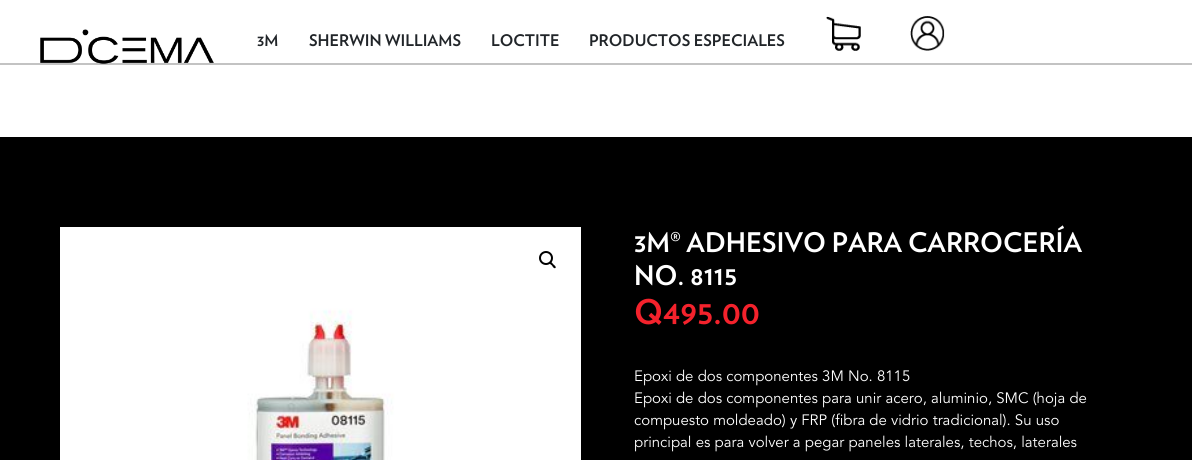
#include <cairo/cairo.h>
#include <math.h>
#include <stddef.h>


static void draw_image(cairo_t *cr, const char *path, double x, double y, double w, double h) {
  cairo_surface_t *image = cairo_image_surface_create_from_png(path);
  cairo_save(cr);
  cairo_set_source_surface(cr, image, x, y);
  cairo_rectangle(cr, x, y, w, h);
  cairo_fill(cr);
  cairo_restore(cr);
  cairo_surface_destroy(image);
}

static void draw(cairo_t *cr) {
  cairo_set_source_rgb(cr, 1, 1, 1);
  cairo_paint(cr);
  cairo_set_source_rgb(cr, 195 / 255.0, 195 / 255.0, 195 / 255.0);
  cairo_rectangle(cr, 0, 63, 1192, 2);
  cairo_fill(cr);
  draw_image(cr, "images/1.png", 40, 29, 174, 35);
  draw_image(cr, "images/2.png", 826, 16, 35, 35);
  draw_image(cr, "images/3.png", 910, 16, 35, 35);
  cairo_set_source_rgb(cr, 0, 0, 0);
  cairo_rectangle(cr, 0, 137, 1192, 323);
  cairo_fill(cr);
  draw_image(cr, "images/4.png", 60, 227, 521, 233);
  cairo_arc(cr, 546, 258, 6, 0, 2 * M_PI);
  cairo_stroke(cr);
  cairo_new_path(cr);
  cairo_move_to(cr, 550, 262);
  cairo_curve_to(cr, 551, 261, 552.5, 263.5, 553.5, 264.5);
  cairo_curve_to(cr, 554, 265, 556.5, 266.5, 555.5, 268);
  cairo_curve_to(cr, 554, 269, 552.5, 266.5, 552, 265.5);
  cairo_curve_to(cr, 551.5, 265, 548.5, 263.5, 550, 262);
  cairo_close_path(cr);
  cairo_fill(cr);
  cairo_select_font_face(cr, "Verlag", CAIRO_FONT_SLANT_NORMAL, CAIRO_FONT_WEIGHT_BOLD);
  cairo_set_font_size(cr, 16);
  cairo_set_source_rgb(cr, 33 / 255.0, 37 / 255.0, 41 / 255.0);
  cairo_move_to(cr, 257, 46);
  cairo_show_text(cr, "3M");
  cairo_move_to(cr, 309, 46);
  cairo_show_text(cr, "SHERWIN WILLIAMS");
  cairo_move_to(cr, 491, 46);
  cairo_show_text(cr, "LOCTITE");
  cairo_move_to(cr, 589, 46);
  cairo_show_text(cr, "PRODUCTOS ESPECIALES");
  cairo_set_font_size(cr, 27);
  cairo_set_source_rgb(cr, 1, 1, 1);
  cairo_move_to(cr, 634, 252);
  cairo_show_text(cr, "3M® ADHESIVO PARA CARROCERÍA");
  cairo_move_to(cr, 634, 285);
  cairo_show_text(cr, "NO. 8115");
  cairo_set_font_size(cr, 34);
  cairo_set_source_rgb(cr, 244 / 255.0, 34 / 255.0, 44 / 255.0);
  cairo_move_to(cr, 634, 324);
  cairo_show_text(cr, "Q495.00");
  cairo_select_font_face(cr, "Avenir", CAIRO_FONT_SLANT_NORMAL, CAIRO_FONT_WEIGHT_NORMAL);
  cairo_set_font_size(cr, 15);
  cairo_set_source_rgb(cr, 1, 1, 1);
  cairo_move_to(cr, 634, 381);
  cairo_show_text(cr, "Epoxi de dos componentes 3M No. 8115");
  cairo_move_to(cr, 634, 403);
  cairo_show_text(cr, "Epoxi de dos componentes para unir acero, aluminio, SMC (hoja de");
  cairo_move_to(cr, 634, 425);
  cairo_show_text(cr, "compuesto moldeado) y FRP (fibra de vidrio tradicional). Su uso");
  cairo_move_to(cr, 634, 447);
  cairo_show_text(cr, "principal es para volver a pegar paneles laterales, techos, laterales");
}

int main(void) {
  cairo_surface_t *surface = cairo_image_surface_create(CAIRO_FORMAT_RGB24, 1192, 460);
  cairo_t *cr = cairo_create(surface);
  cairo_font_options_t *options = cairo_font_options_create();
  cairo_font_options_set_hint_metrics(options, CAIRO_HINT_METRICS_OFF);
  cairo_font_options_set_hint_style(options, CAIRO_HINT_STYLE_NONE);
  cairo_set_font_options(cr, options);
  cairo_set_miter_limit(cr, 4);
  draw(cr);
  cairo_surface_write_to_png(surface, "out.png");
  cairo_font_options_destroy(options);
  cairo_destroy(cr);
  cairo_surface_destroy(surface);
  return 0;
}
